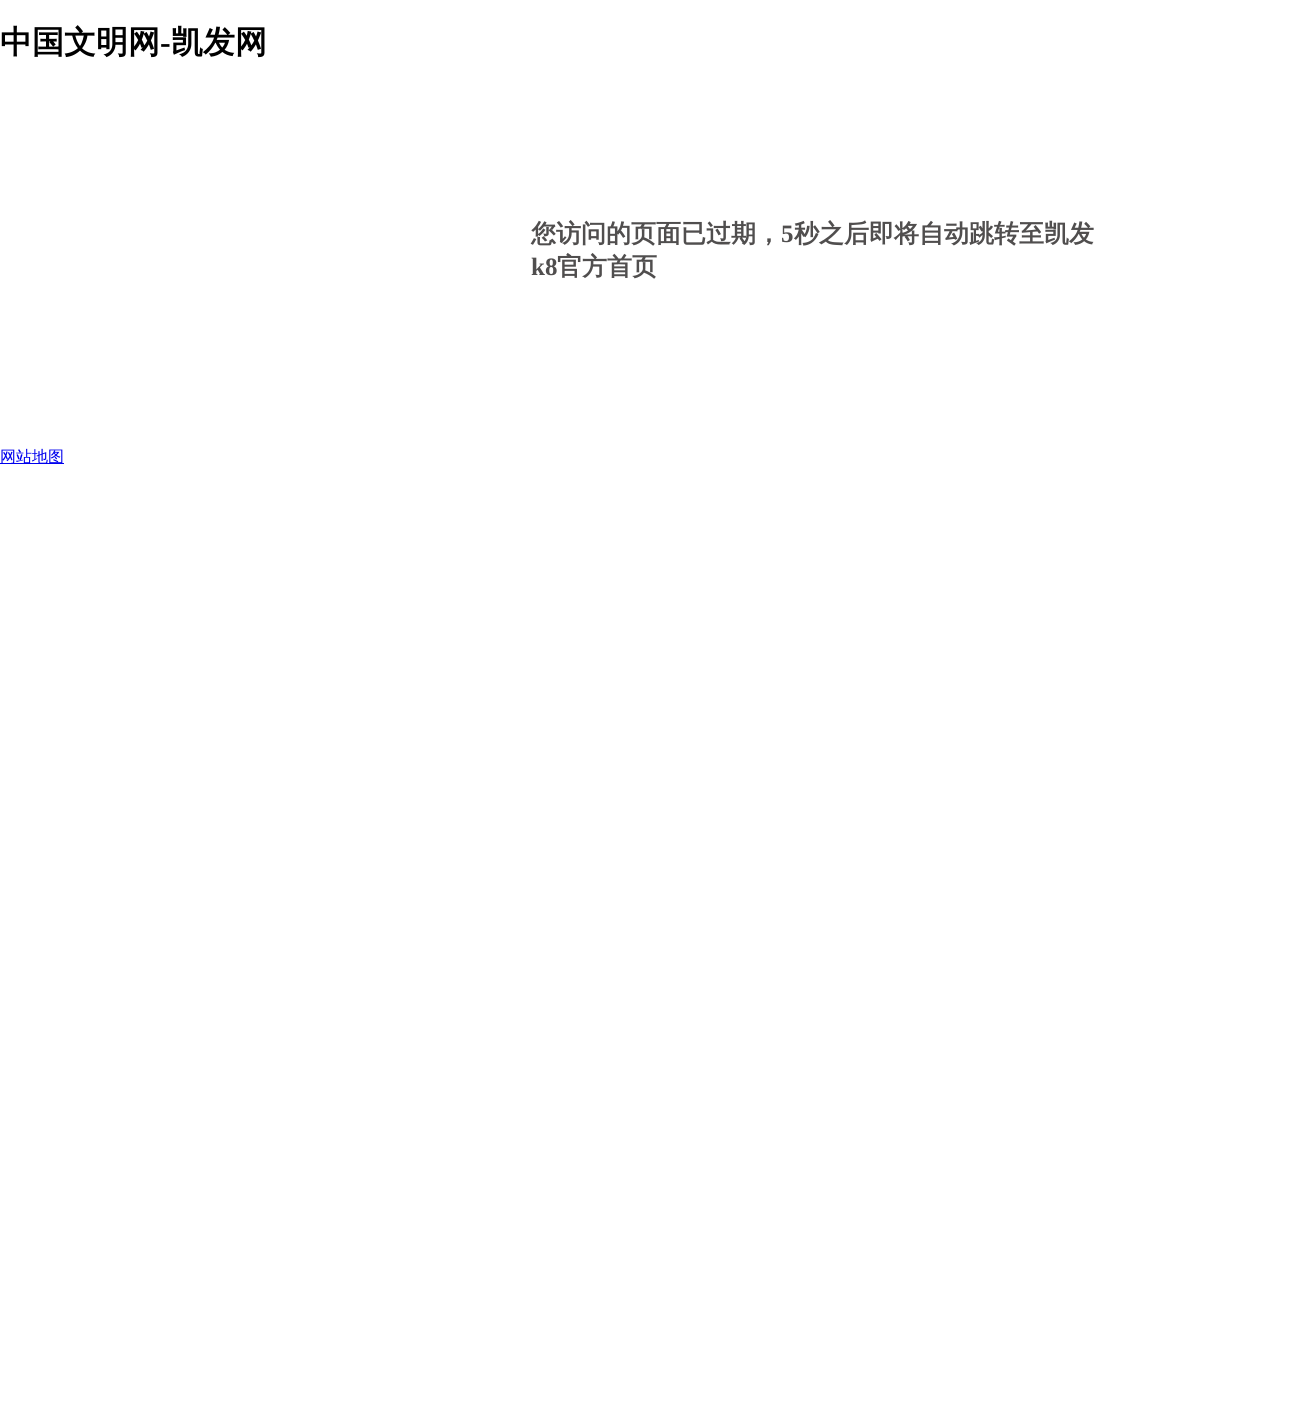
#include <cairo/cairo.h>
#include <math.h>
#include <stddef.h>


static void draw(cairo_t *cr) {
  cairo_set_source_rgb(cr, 1, 1, 1);
  cairo_paint(cr);
  cairo_set_source_rgb(cr, 0, 0, 238 / 255.0);
  cairo_rectangle(cr, 0, 463, 64, 1);
  cairo_fill(cr);
  cairo_select_font_face(cr, "WenQuanYi Zen Hei", CAIRO_FONT_SLANT_NORMAL, CAIRO_FONT_WEIGHT_BOLD);
  cairo_set_font_size(cr, 32);
  cairo_set_source_rgb(cr, 0, 0, 0);
  cairo_move_to(cr, 0, 53);
  cairo_show_text(cr, "中国文明网");
  cairo_select_font_face(cr, "Liberation Serif", CAIRO_FONT_SLANT_NORMAL, CAIRO_FONT_WEIGHT_BOLD);
  cairo_move_to(cr, 160, 53);
  cairo_show_text(cr, "-");
  cairo_select_font_face(cr, "WenQuanYi Zen Hei", CAIRO_FONT_SLANT_NORMAL, CAIRO_FONT_WEIGHT_BOLD);
  cairo_move_to(cr, 171, 53);
  cairo_show_text(cr, "凯发网");
  cairo_set_font_size(cr, 25);
  cairo_set_source_rgb(cr, 80 / 255.0, 78 / 255.0, 78 / 255.0);
  cairo_move_to(cr, 531, 242);
  cairo_show_text(cr, "您访问的页面已过期，");
  cairo_select_font_face(cr, "Liberation Serif", CAIRO_FONT_SLANT_NORMAL, CAIRO_FONT_WEIGHT_BOLD);
  cairo_move_to(cr, 781, 242);
  cairo_show_text(cr, "5");
  cairo_select_font_face(cr, "WenQuanYi Zen Hei", CAIRO_FONT_SLANT_NORMAL, CAIRO_FONT_WEIGHT_BOLD);
  cairo_move_to(cr, 794, 242);
  cairo_show_text(cr, "秒之后即将自动跳转至凯发");
  cairo_select_font_face(cr, "Liberation Serif", CAIRO_FONT_SLANT_NORMAL, CAIRO_FONT_WEIGHT_BOLD);
  cairo_move_to(cr, 531, 275);
  cairo_show_text(cr, "k8");
  cairo_select_font_face(cr, "WenQuanYi Zen Hei", CAIRO_FONT_SLANT_NORMAL, CAIRO_FONT_WEIGHT_BOLD);
  cairo_move_to(cr, 557, 275);
  cairo_show_text(cr, "官方首页");
  cairo_select_font_face(cr, "WenQuanYi Zen Hei Medium", CAIRO_FONT_SLANT_NORMAL, CAIRO_FONT_WEIGHT_NORMAL);
  cairo_set_font_size(cr, 16);
  cairo_set_source_rgb(cr, 0, 0, 238 / 255.0);
  cairo_move_to(cr, 0, 462);
  cairo_show_text(cr, "网站地图");
}

int main(void) {
  cairo_surface_t *surface = cairo_image_surface_create(CAIRO_FORMAT_RGB24, 1302, 1428);
  cairo_t *cr = cairo_create(surface);
  cairo_font_options_t *options = cairo_font_options_create();
  cairo_font_options_set_hint_metrics(options, CAIRO_HINT_METRICS_OFF);
  cairo_font_options_set_hint_style(options, CAIRO_HINT_STYLE_NONE);
  cairo_set_font_options(cr, options);
  cairo_set_miter_limit(cr, 4);
  draw(cr);
  cairo_surface_write_to_png(surface, "out.png");
  cairo_font_options_destroy(options);
  cairo_destroy(cr);
  cairo_surface_destroy(surface);
  return 0;
}
